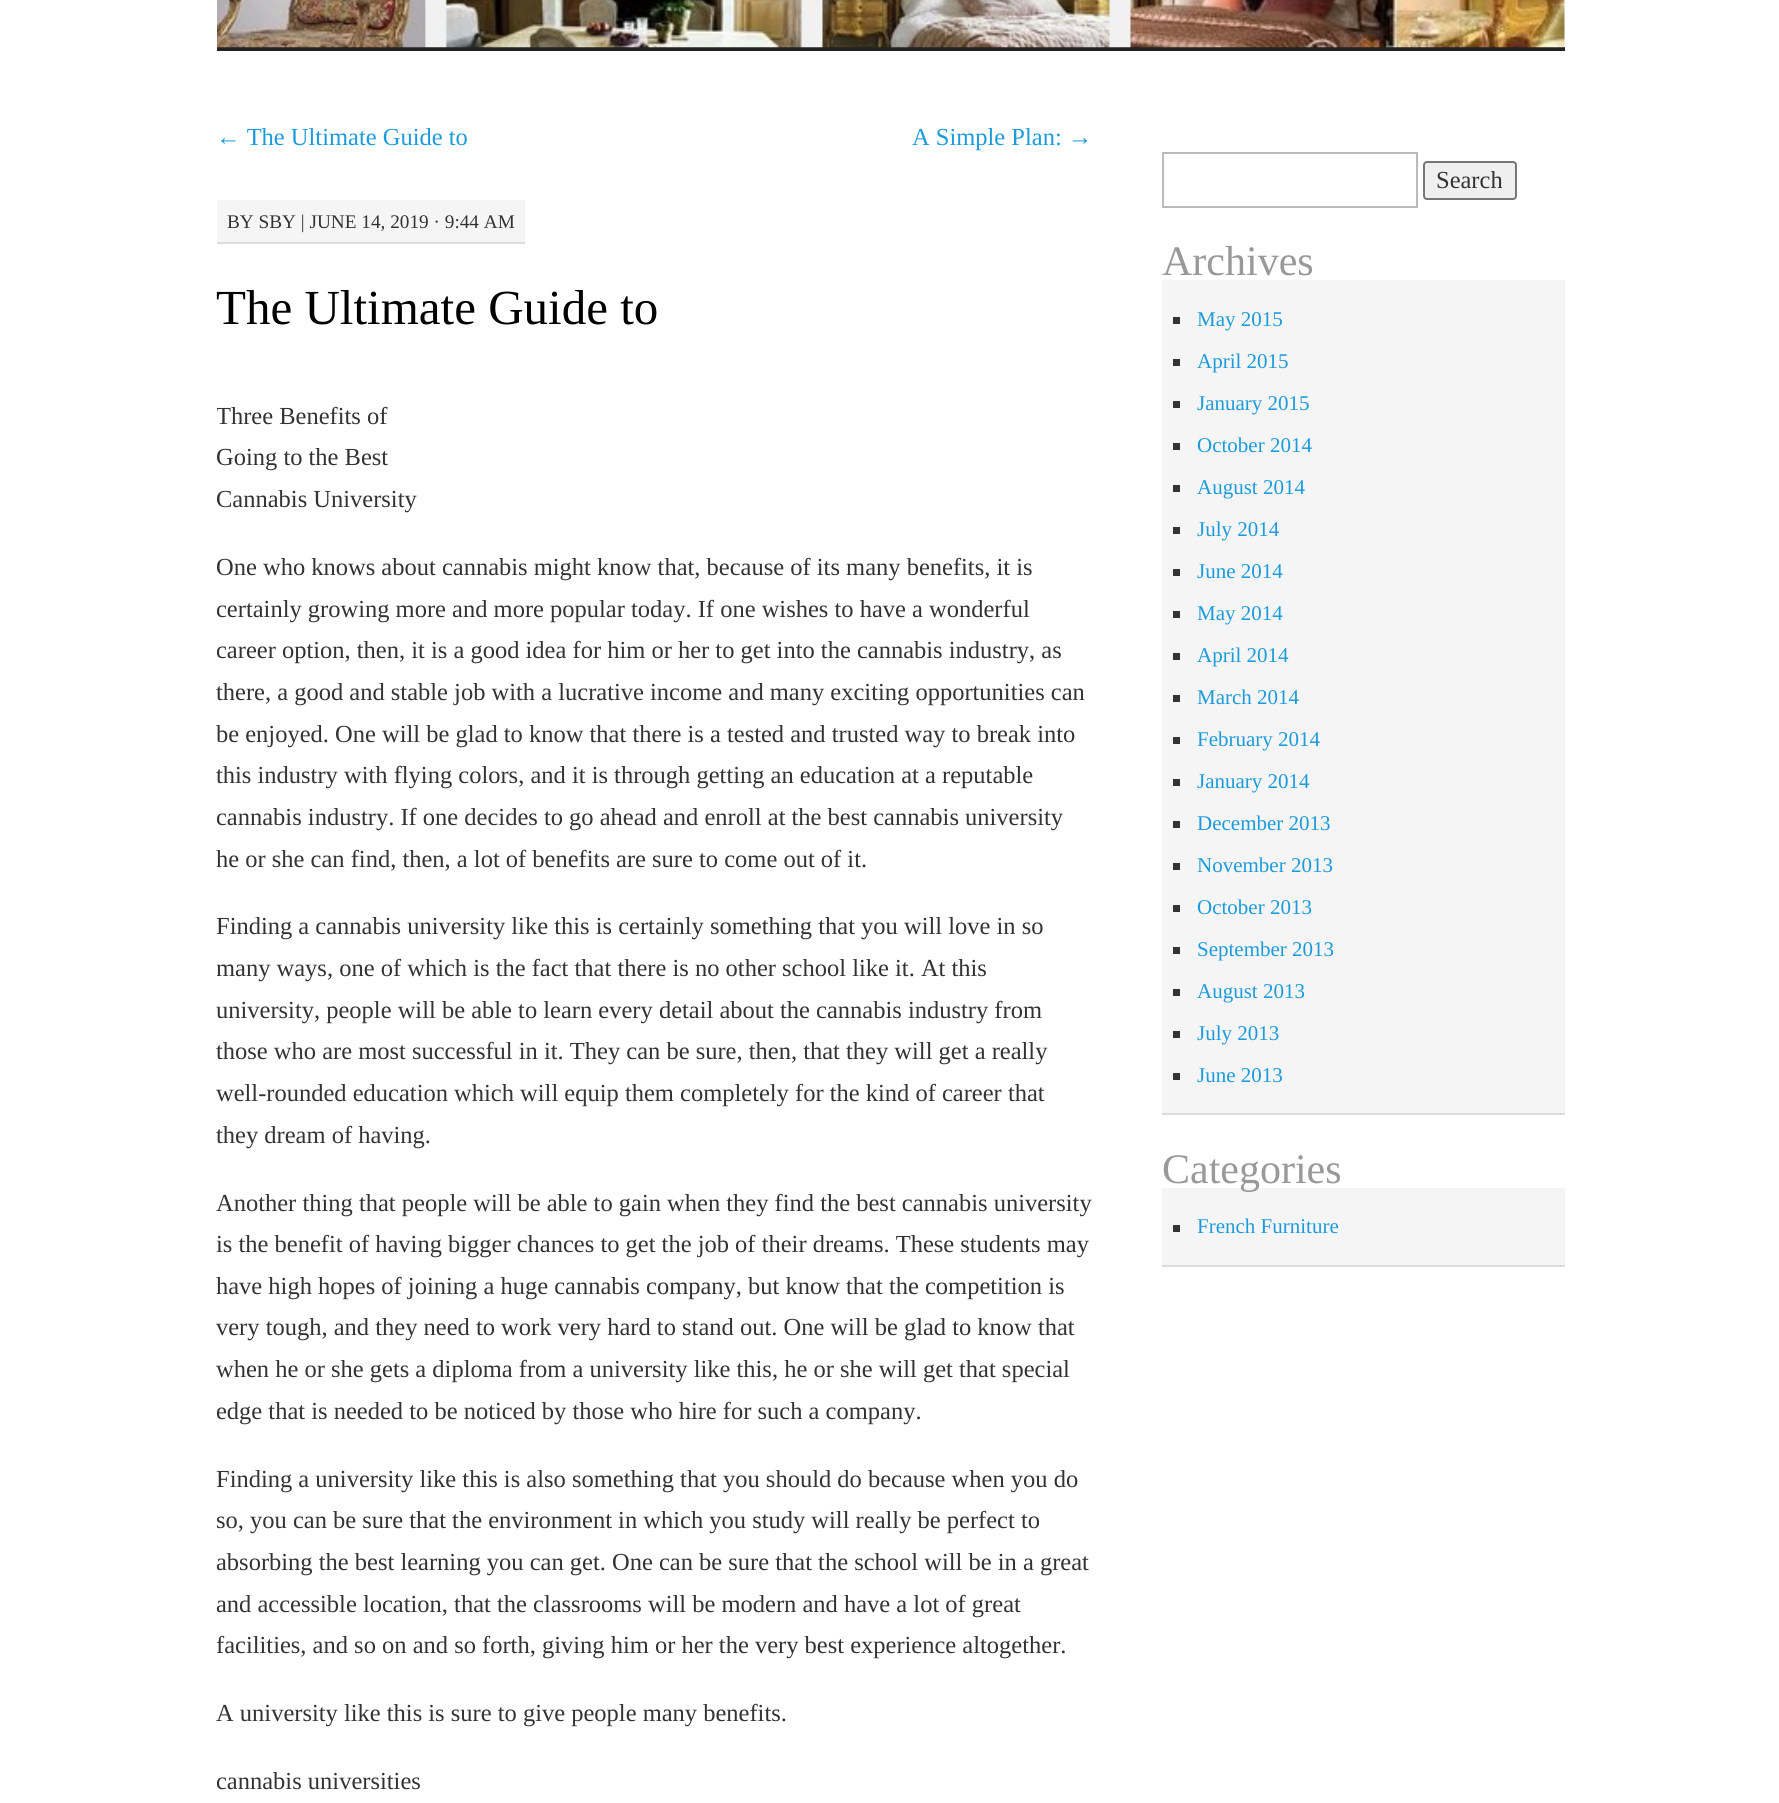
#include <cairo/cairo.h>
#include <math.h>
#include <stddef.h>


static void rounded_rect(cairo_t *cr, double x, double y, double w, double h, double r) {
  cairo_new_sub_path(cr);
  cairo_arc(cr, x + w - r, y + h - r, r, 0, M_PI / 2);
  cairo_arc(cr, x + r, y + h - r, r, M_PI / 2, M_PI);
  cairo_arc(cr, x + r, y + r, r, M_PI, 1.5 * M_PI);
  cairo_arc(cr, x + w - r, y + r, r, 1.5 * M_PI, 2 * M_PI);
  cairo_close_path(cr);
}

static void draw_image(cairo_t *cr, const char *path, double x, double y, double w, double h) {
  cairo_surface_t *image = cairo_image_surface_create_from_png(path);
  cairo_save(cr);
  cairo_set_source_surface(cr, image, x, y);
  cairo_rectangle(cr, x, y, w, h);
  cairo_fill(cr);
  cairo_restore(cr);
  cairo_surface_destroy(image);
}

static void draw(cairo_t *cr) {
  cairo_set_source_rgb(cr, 1, 1, 1);
  cairo_paint(cr);
  cairo_set_source_rgb(cr, 34 / 255.0, 34 / 255.0, 34 / 255.0);
  cairo_rectangle(cr, 217, 47, 1348, 4);
  cairo_fill(cr);
  draw_image(cr, "images/1.png", 217, 0, 1348, 48);
  cairo_set_source_rgb(cr, 245 / 255.0, 245 / 255.0, 245 / 255.0);
  cairo_rectangle(cr, 217, 200, 308, 42);
  cairo_fill(cr);
  cairo_set_source_rgb(cr, 221 / 255.0, 221 / 255.0, 221 / 255.0);
  cairo_rectangle(cr, 217, 242, 308, 2);
  cairo_fill(cr);
  cairo_rectangle(cr, 1163, 153, 254, 54);
  cairo_set_source_rgb(cr, 187 / 255.0, 187 / 255.0, 187 / 255.0);
  cairo_stroke(cr);
  cairo_set_source_rgb(cr, 239 / 255.0, 239 / 255.0, 239 / 255.0);
  rounded_rect(cr, 1424, 162, 92, 37, 3);
  cairo_fill_preserve(cr);
  cairo_set_source_rgb(cr, 118 / 255.0, 118 / 255.0, 118 / 255.0);
  cairo_stroke(cr);
  cairo_set_source_rgb(cr, 245 / 255.0, 245 / 255.0, 245 / 255.0);
  cairo_rectangle(cr, 1162, 280, 403, 833);
  cairo_fill(cr);
  cairo_set_source_rgb(cr, 221 / 255.0, 221 / 255.0, 221 / 255.0);
  cairo_rectangle(cr, 1162, 1113, 403, 2);
  cairo_fill(cr);
  cairo_set_source_rgb(cr, 51 / 255.0, 51 / 255.0, 51 / 255.0);
  cairo_rectangle(cr, 1173, 317, 7, 7);
  cairo_fill(cr);
  cairo_rectangle(cr, 1173, 359, 7, 7);
  cairo_fill(cr);
  cairo_rectangle(cr, 1173, 401, 7, 7);
  cairo_fill(cr);
  cairo_rectangle(cr, 1173, 443, 7, 7);
  cairo_fill(cr);
  cairo_rectangle(cr, 1173, 485, 7, 7);
  cairo_fill(cr);
  cairo_rectangle(cr, 1173, 527, 7, 7);
  cairo_fill(cr);
  cairo_rectangle(cr, 1173, 569, 7, 7);
  cairo_fill(cr);
  cairo_rectangle(cr, 1173, 611, 7, 7);
  cairo_fill(cr);
  cairo_rectangle(cr, 1173, 653, 7, 7);
  cairo_fill(cr);
  cairo_rectangle(cr, 1173, 695, 7, 7);
  cairo_fill(cr);
  cairo_rectangle(cr, 1173, 737, 7, 7);
  cairo_fill(cr);
  cairo_rectangle(cr, 1173, 779, 7, 7);
  cairo_fill(cr);
  cairo_rectangle(cr, 1173, 821, 7, 7);
  cairo_fill(cr);
  cairo_rectangle(cr, 1173, 863, 7, 7);
  cairo_fill(cr);
  cairo_rectangle(cr, 1173, 905, 7, 7);
  cairo_fill(cr);
  cairo_rectangle(cr, 1173, 947, 7, 7);
  cairo_fill(cr);
  cairo_rectangle(cr, 1173, 989, 7, 7);
  cairo_fill(cr);
  cairo_rectangle(cr, 1173, 1031, 7, 7);
  cairo_fill(cr);
  cairo_rectangle(cr, 1173, 1073, 7, 7);
  cairo_fill(cr);
  cairo_set_source_rgb(cr, 245 / 255.0, 245 / 255.0, 245 / 255.0);
  cairo_rectangle(cr, 1162, 1188, 403, 77);
  cairo_fill(cr);
  cairo_set_source_rgb(cr, 221 / 255.0, 221 / 255.0, 221 / 255.0);
  cairo_rectangle(cr, 1162, 1265, 403, 2);
  cairo_fill(cr);
  cairo_set_source_rgb(cr, 51 / 255.0, 51 / 255.0, 51 / 255.0);
  cairo_rectangle(cr, 1173, 1225, 7, 7);
  cairo_fill(cr);
  cairo_select_font_face(cr, "Liberation Serif", CAIRO_FONT_SLANT_NORMAL, CAIRO_FONT_WEIGHT_NORMAL);
  cairo_set_font_size(cr, 24.5);
  cairo_set_source_rgb(cr, 28 / 255.0, 155 / 255.0, 220 / 255.0);
  cairo_move_to(cr, 216, 145);
  cairo_show_text(cr, "← The Ultimate Guide to");
  cairo_move_to(cr, 912, 145);
  cairo_show_text(cr, "A Simple Plan: →");
  cairo_set_font_size(cr, 19.25);
  cairo_set_source_rgb(cr, 51 / 255.0, 51 / 255.0, 51 / 255.0);
  cairo_move_to(cr, 227, 228);
  cairo_show_text(cr, "BY SBY | JUNE 14, 2019 · 9:44 AM");
  cairo_set_font_size(cr, 49);
  cairo_set_source_rgb(cr, 0, 0, 0);
  cairo_move_to(cr, 216, 324);
  cairo_show_text(cr, "The Ultimate Guide to");
  cairo_save(cr);
  cairo_rectangle(cr, 217, 117, 875, 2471);
  cairo_clip(cr);
  cairo_set_font_size(cr, 24.5);
  cairo_set_source_rgb(cr, 51 / 255.0, 51 / 255.0, 51 / 255.0);
  cairo_move_to(cr, 216, 424);
  cairo_show_text(cr, "Three Benefits of");
  cairo_restore(cr);
  cairo_set_font_size(cr, 24.5);
  cairo_set_source_rgb(cr, 51 / 255.0, 51 / 255.0, 51 / 255.0);
  cairo_move_to(cr, 216, 465);
  cairo_show_text(cr, "Going to the Best");
  cairo_move_to(cr, 216, 507);
  cairo_show_text(cr, "Cannabis University");
  cairo_move_to(cr, 216, 575);
  cairo_show_text(cr, "One who knows about cannabis might know that, because of its many benefits, it is");
  cairo_move_to(cr, 216, 617);
  cairo_show_text(cr, "certainly growing more and more popular today. If one wishes to have a wonderful");
  cairo_move_to(cr, 216, 658);
  cairo_show_text(cr, "career option, then, it is a good idea for him or her to get into the cannabis industry, as");
  cairo_move_to(cr, 216, 700);
  cairo_show_text(cr, "there, a good and stable job with a lucrative income and many exciting opportunities can");
  cairo_move_to(cr, 216, 742);
  cairo_show_text(cr, "be enjoyed. One will be glad to know that there is a tested and trusted way to break into");
  cairo_move_to(cr, 216, 783);
  cairo_show_text(cr, "this industry with flying colors, and it is through getting an education at a reputable");
  cairo_move_to(cr, 216, 825);
  cairo_show_text(cr, "cannabis industry. If one decides to go ahead and enroll at the best cannabis university");
  cairo_move_to(cr, 216, 867);
  cairo_show_text(cr, "he or she can find, then, a lot of benefits are sure to come out of it.");
  cairo_move_to(cr, 216, 934);
  cairo_show_text(cr, "Finding a cannabis university like this is certainly something that you will love in so");
  cairo_save(cr);
  cairo_rectangle(cr, 217, 117, 875, 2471);
  cairo_clip(cr);
  cairo_move_to(cr, 216, 976);
  cairo_show_text(cr, "many ways, one of which is the fact that there is no other school like it. At this");
  cairo_restore(cr);
  cairo_move_to(cr, 216, 1018);
  cairo_show_text(cr, "university, people will be able to learn every detail about the cannabis industry from");
  cairo_move_to(cr, 216, 1059);
  cairo_show_text(cr, "those who are most successful in it. They can be sure, then, that they will get a really");
  cairo_move_to(cr, 216, 1101);
  cairo_show_text(cr, "well-rounded education which will equip them completely for the kind of career that");
  cairo_move_to(cr, 216, 1143);
  cairo_show_text(cr, "they dream of having.");
  cairo_move_to(cr, 216, 1211);
  cairo_show_text(cr, "Another thing that people will be able to gain when they find the best cannabis university");
  cairo_move_to(cr, 216, 1252);
  cairo_show_text(cr, "is the benefit of having bigger chances to get the job of their dreams. These students may");
  cairo_move_to(cr, 216, 1294);
  cairo_show_text(cr, "have high hopes of joining a huge cannabis company, but know that the competition is");
  cairo_move_to(cr, 216, 1335);
  cairo_show_text(cr, "very tough, and they need to work very hard to stand out. One will be glad to know that");
  cairo_move_to(cr, 216, 1377);
  cairo_show_text(cr, "when he or she gets a diploma from a university like this, he or she will get that special");
  cairo_move_to(cr, 216, 1419);
  cairo_show_text(cr, "edge that is needed to be noticed by those who hire for such a company.");
  cairo_move_to(cr, 216, 1487);
  cairo_show_text(cr, "Finding a university like this is also something that you should do because when you do");
  cairo_move_to(cr, 216, 1528);
  cairo_show_text(cr, "so, you can be sure that the environment in which you study will really be perfect to");
  cairo_move_to(cr, 216, 1570);
  cairo_show_text(cr, "absorbing the best learning you can get. One can be sure that the school will be in a great");
  cairo_move_to(cr, 216, 1612);
  cairo_show_text(cr, "and accessible location, that the classrooms will be modern and have a lot of great");
  cairo_move_to(cr, 216, 1653);
  cairo_show_text(cr, "facilities, and so on and so forth, giving him or her the very best experience altogether.");
  cairo_move_to(cr, 216, 1721);
  cairo_show_text(cr, "A university like this is sure to give people many benefits.");
  cairo_move_to(cr, 216, 1789);
  cairo_show_text(cr, "cannabis universities");
  cairo_move_to(cr, 1436, 188);
  cairo_show_text(cr, "Search");
  cairo_set_font_size(cr, 42);
  cairo_set_source_rgb(cr, 153 / 255.0, 153 / 255.0, 153 / 255.0);
  cairo_move_to(cr, 1162, 275);
  cairo_show_text(cr, "Archives");
  cairo_set_font_size(cr, 21);
  cairo_set_source_rgb(cr, 28 / 255.0, 155 / 255.0, 220 / 255.0);
  cairo_move_to(cr, 1197, 326);
  cairo_show_text(cr, "May 2015");
  cairo_move_to(cr, 1197, 368);
  cairo_show_text(cr, "April 2015");
  cairo_move_to(cr, 1197, 410);
  cairo_show_text(cr, "January 2015");
  cairo_move_to(cr, 1197, 452);
  cairo_show_text(cr, "October 2014");
  cairo_move_to(cr, 1197, 494);
  cairo_show_text(cr, "August 2014");
  cairo_move_to(cr, 1197, 536);
  cairo_show_text(cr, "July 2014");
  cairo_move_to(cr, 1197, 578);
  cairo_show_text(cr, "June 2014");
  cairo_move_to(cr, 1197, 620);
  cairo_show_text(cr, "May 2014");
  cairo_move_to(cr, 1197, 662);
  cairo_show_text(cr, "April 2014");
  cairo_move_to(cr, 1197, 704);
  cairo_show_text(cr, "March 2014");
  cairo_move_to(cr, 1197, 746);
  cairo_show_text(cr, "February 2014");
  cairo_move_to(cr, 1197, 788);
  cairo_show_text(cr, "January 2014");
  cairo_move_to(cr, 1197, 830);
  cairo_show_text(cr, "December 2013");
  cairo_move_to(cr, 1197, 872);
  cairo_show_text(cr, "November 2013");
  cairo_move_to(cr, 1197, 914);
  cairo_show_text(cr, "October 2013");
  cairo_move_to(cr, 1197, 956);
  cairo_show_text(cr, "September 2013");
  cairo_move_to(cr, 1197, 998);
  cairo_show_text(cr, "August 2013");
  cairo_move_to(cr, 1197, 1040);
  cairo_show_text(cr, "July 2013");
  cairo_move_to(cr, 1197, 1082);
  cairo_show_text(cr, "June 2013");
  cairo_set_font_size(cr, 42);
  cairo_set_source_rgb(cr, 153 / 255.0, 153 / 255.0, 153 / 255.0);
  cairo_move_to(cr, 1162, 1183);
  cairo_show_text(cr, "Categories");
  cairo_set_font_size(cr, 21);
  cairo_set_source_rgb(cr, 28 / 255.0, 155 / 255.0, 220 / 255.0);
  cairo_move_to(cr, 1197, 1233);
  cairo_show_text(cr, "French Furniture");
}

int main(void) {
  cairo_surface_t *surface = cairo_image_surface_create(CAIRO_FORMAT_RGB24, 1779, 1803);
  cairo_t *cr = cairo_create(surface);
  cairo_font_options_t *options = cairo_font_options_create();
  cairo_font_options_set_hint_metrics(options, CAIRO_HINT_METRICS_OFF);
  cairo_font_options_set_hint_style(options, CAIRO_HINT_STYLE_NONE);
  cairo_set_font_options(cr, options);
  cairo_set_miter_limit(cr, 4);
  draw(cr);
  cairo_surface_write_to_png(surface, "out.png");
  cairo_font_options_destroy(options);
  cairo_destroy(cr);
  cairo_surface_destroy(surface);
  return 0;
}
